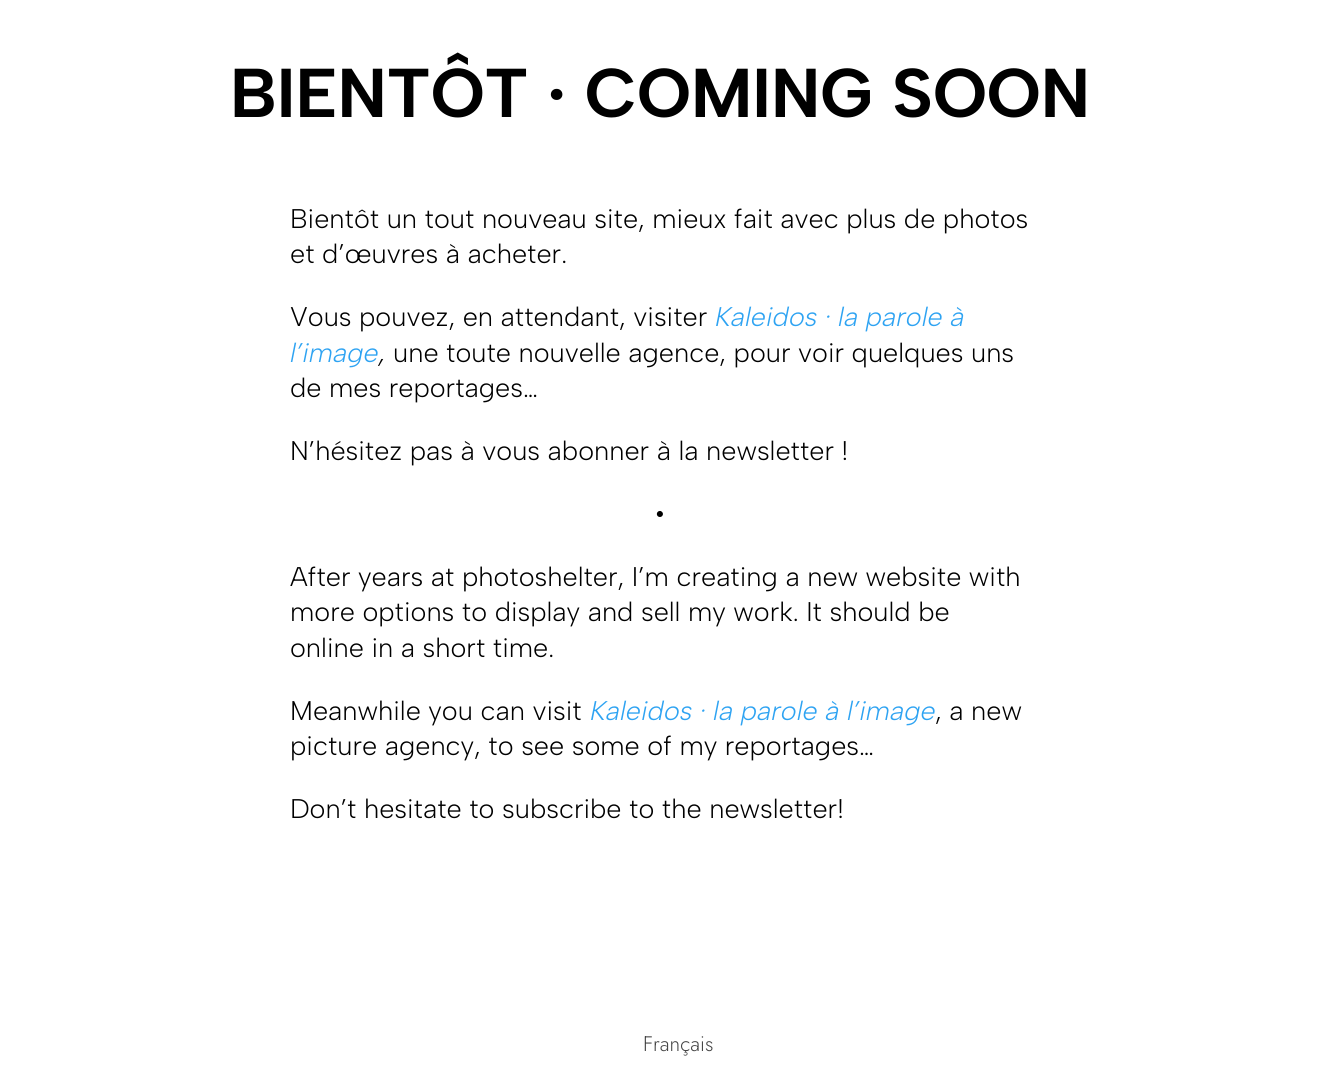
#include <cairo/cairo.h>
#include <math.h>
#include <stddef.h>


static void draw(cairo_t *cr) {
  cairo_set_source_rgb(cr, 1, 1, 1);
  cairo_paint(cr);
  cairo_select_font_face(cr, "Albert Sans", CAIRO_FONT_SLANT_NORMAL, CAIRO_FONT_WEIGHT_BOLD);
  cairo_set_font_size(cr, 69);
  cairo_set_source_rgb(cr, 0, 0, 0);
  cairo_move_to(cr, 230, 117);
  cairo_show_text(cr, "BIENTÔT · COMING SOON");
  cairo_select_font_face(cr, "Albert Sans Light", CAIRO_FONT_SLANT_NORMAL, CAIRO_FONT_WEIGHT_NORMAL);
  cairo_set_font_size(cr, 27);
  cairo_move_to(cr, 290, 228);
  cairo_show_text(cr, "Bientôt un tout nouveau site, mieux fait avec plus de photos");
  cairo_move_to(cr, 290, 263);
  cairo_show_text(cr, "et d’œuvres à acheter.");
  cairo_move_to(cr, 290, 326);
  cairo_show_text(cr, "Vous pouvez, en attendant, visiter");
  cairo_select_font_face(cr, "Albert Sans Light", CAIRO_FONT_SLANT_ITALIC, CAIRO_FONT_WEIGHT_NORMAL);
  cairo_set_source_rgb(cr, 46 / 255.0, 163 / 255.0, 242 / 255.0);
  cairo_move_to(cr, 715, 326);
  cairo_show_text(cr, "Kaleidos · la parole à");
  cairo_move_to(cr, 290, 362);
  cairo_show_text(cr, "l’image");
  cairo_set_source_rgb(cr, 0, 0, 0);
  cairo_move_to(cr, 379, 362);
  cairo_show_text(cr, ",");
  cairo_select_font_face(cr, "Albert Sans Light", CAIRO_FONT_SLANT_NORMAL, CAIRO_FONT_WEIGHT_NORMAL);
  cairo_move_to(cr, 393, 362);
  cairo_show_text(cr, "une toute nouvelle agence, pour voir quelques uns");
  cairo_move_to(cr, 290, 397);
  cairo_show_text(cr, "de mes reportages…");
  cairo_move_to(cr, 290, 460);
  cairo_show_text(cr, "N’hésitez pas à vous abonner à la newsletter !");
  cairo_move_to(cr, 654, 523);
  cairo_show_text(cr, "•");
  cairo_move_to(cr, 290, 586);
  cairo_show_text(cr, "After years at photoshelter, I’m creating a new website with");
  cairo_move_to(cr, 290, 621);
  cairo_show_text(cr, "more options to display and sell my work. It should be");
  cairo_move_to(cr, 290, 657);
  cairo_show_text(cr, "online in a short time.");
  cairo_move_to(cr, 290, 720);
  cairo_show_text(cr, "Meanwhile you can visit");
  cairo_select_font_face(cr, "Albert Sans Light", CAIRO_FONT_SLANT_ITALIC, CAIRO_FONT_WEIGHT_NORMAL);
  cairo_set_source_rgb(cr, 46 / 255.0, 163 / 255.0, 242 / 255.0);
  cairo_move_to(cr, 590, 720);
  cairo_show_text(cr, "Kaleidos · la parole à l’image");
  cairo_select_font_face(cr, "Albert Sans Light", CAIRO_FONT_SLANT_NORMAL, CAIRO_FONT_WEIGHT_NORMAL);
  cairo_set_source_rgb(cr, 0, 0, 0);
  cairo_move_to(cr, 935, 720);
  cairo_show_text(cr, ", a new");
  cairo_move_to(cr, 290, 755);
  cairo_show_text(cr, "picture agency, to see some of my reportages…");
  cairo_move_to(cr, 290, 818);
  cairo_show_text(cr, "Don’t hesitate to subscribe to the newsletter!");
  cairo_select_font_face(cr, "Jost Light", CAIRO_FONT_SLANT_NORMAL, CAIRO_FONT_WEIGHT_NORMAL);
  cairo_set_font_size(cr, 21);
  cairo_set_source_rgb(cr, 68 / 255.0, 68 / 255.0, 68 / 255.0);
  cairo_move_to(cr, 643, 1051);
  cairo_show_text(cr, "Français");
}

int main(void) {
  cairo_surface_t *surface = cairo_image_surface_create(CAIRO_FORMAT_RGB24, 1320, 1089);
  cairo_t *cr = cairo_create(surface);
  cairo_font_options_t *options = cairo_font_options_create();
  cairo_font_options_set_hint_metrics(options, CAIRO_HINT_METRICS_OFF);
  cairo_font_options_set_hint_style(options, CAIRO_HINT_STYLE_NONE);
  cairo_set_font_options(cr, options);
  cairo_set_miter_limit(cr, 4);
  draw(cr);
  cairo_surface_write_to_png(surface, "out.png");
  cairo_font_options_destroy(options);
  cairo_destroy(cr);
  cairo_surface_destroy(surface);
  return 0;
}
